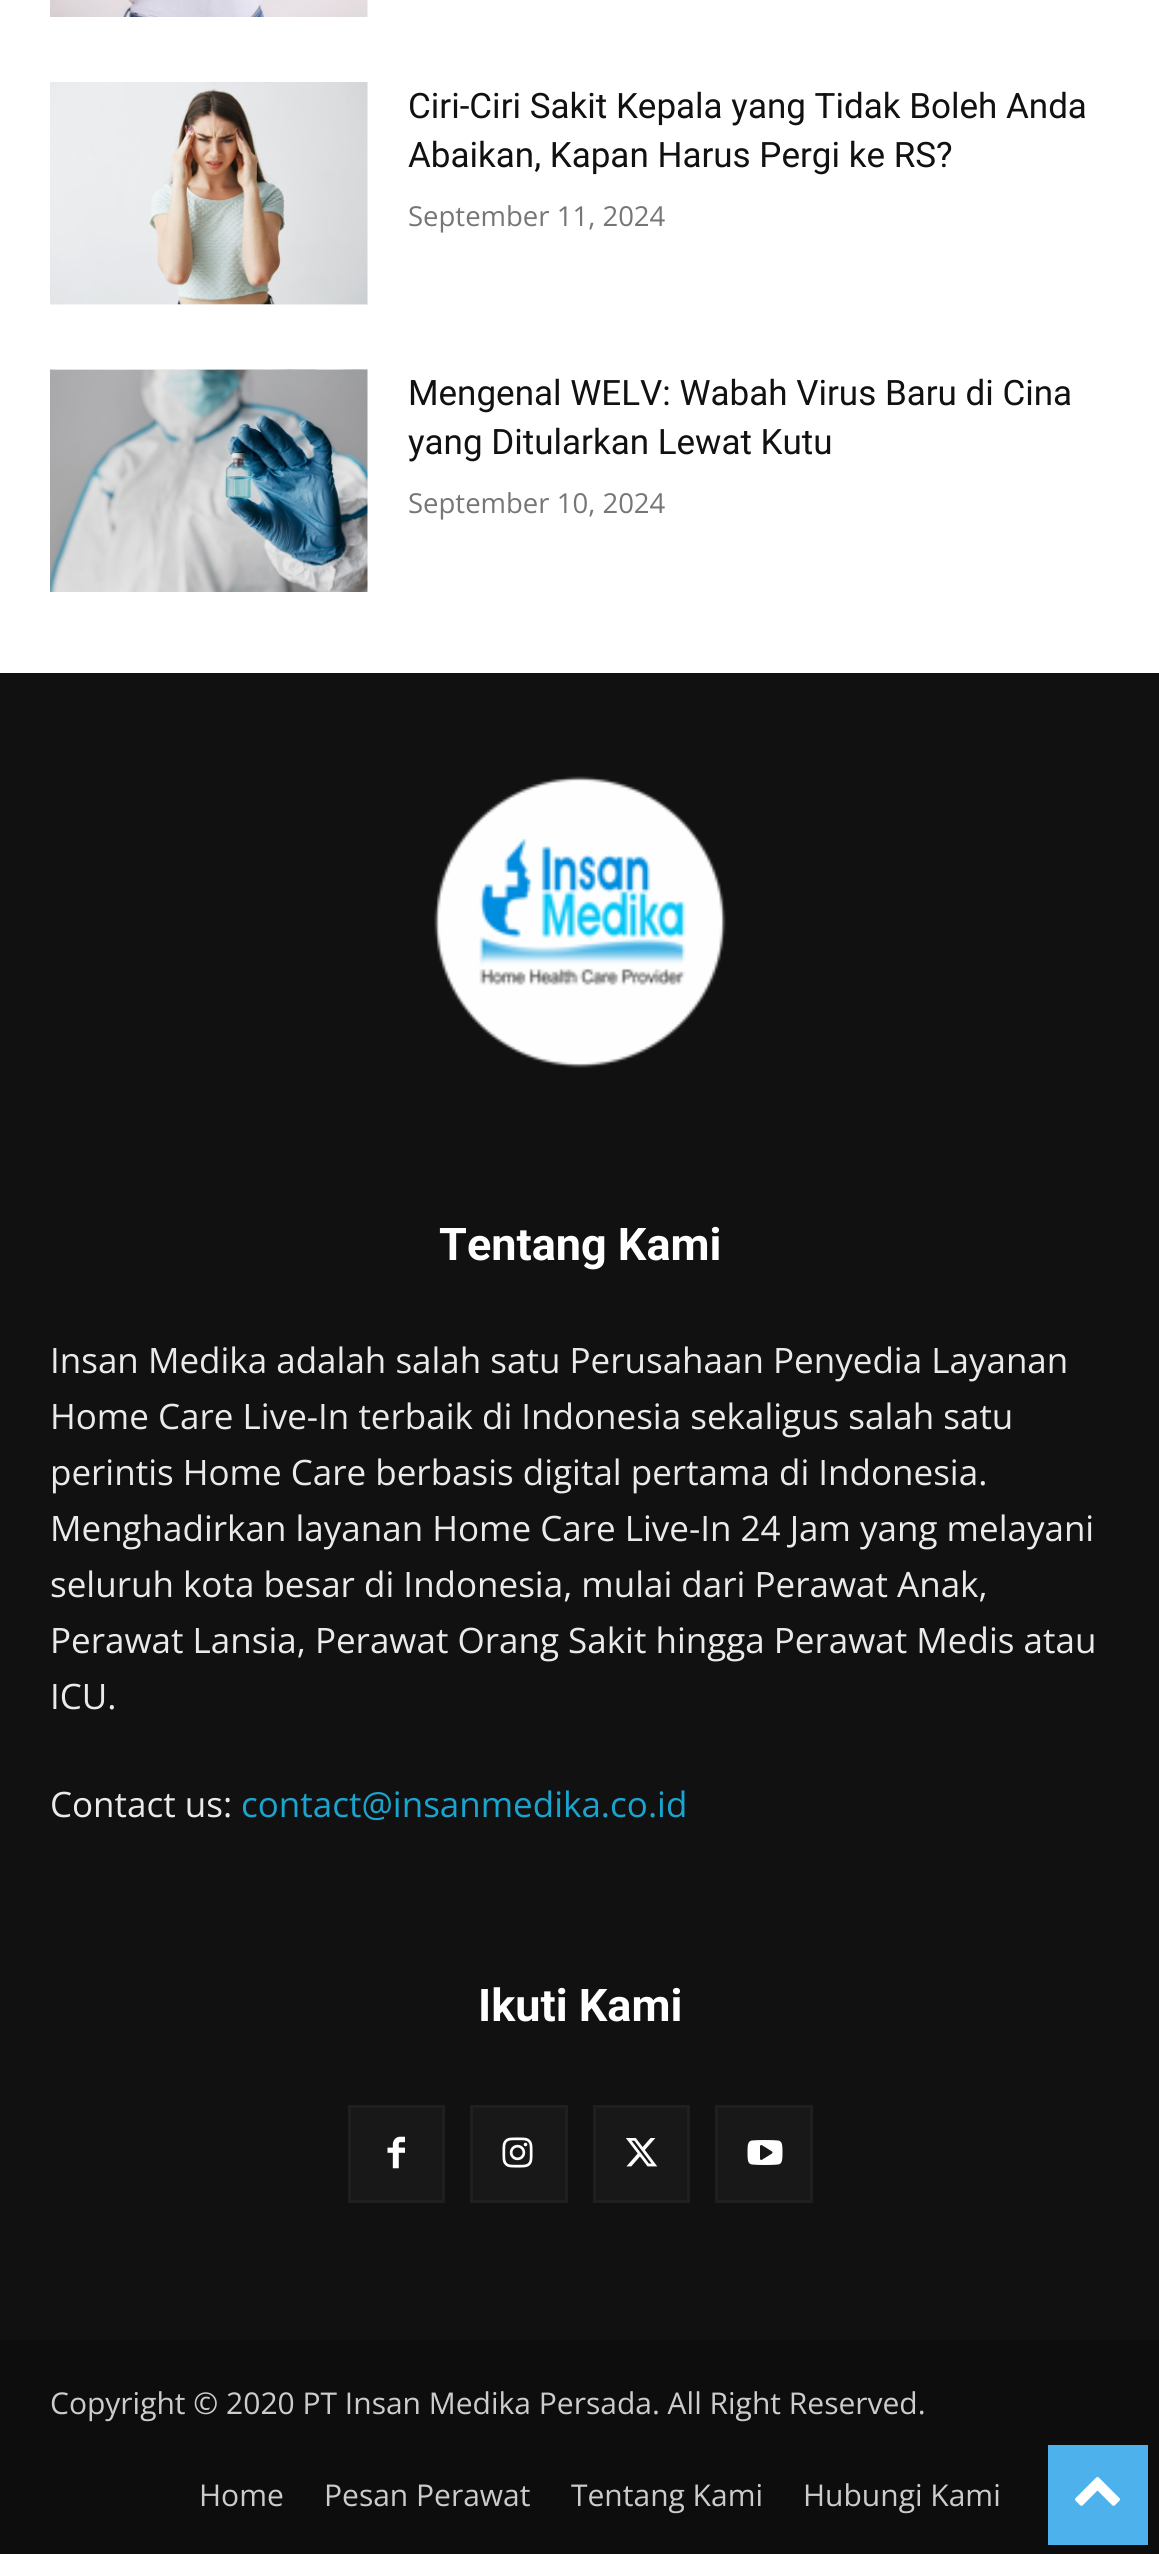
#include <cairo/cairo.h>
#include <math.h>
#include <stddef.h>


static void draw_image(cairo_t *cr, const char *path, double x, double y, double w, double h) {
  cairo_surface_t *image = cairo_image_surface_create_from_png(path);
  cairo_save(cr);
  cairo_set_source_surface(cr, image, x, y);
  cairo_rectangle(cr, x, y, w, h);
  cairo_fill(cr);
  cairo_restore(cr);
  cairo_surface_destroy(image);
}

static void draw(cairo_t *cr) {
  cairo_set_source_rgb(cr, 1, 1, 1);
  cairo_paint(cr);
  draw_image(cr, "images/1.png", 50, 0, 318, 17);
  draw_image(cr, "images/2.png", 50, 82, 318, 223);
  draw_image(cr, "images/3.png", 50, 369, 318, 223);
  cairo_set_source_rgb(cr, 17 / 255.0, 17 / 255.0, 17 / 255.0);
  cairo_rectangle(cr, 0, 673, 1159, 1667);
  cairo_fill(cr);
  draw_image(cr, "images/4.png", 434, 776, 292, 292);
  cairo_set_source_rgb(cr, 24 / 255.0, 24 / 255.0, 24 / 255.0);
  cairo_rectangle(cr, 349.5, 2106.5, 94, 95);
  cairo_fill_preserve(cr);
  cairo_set_source_rgb(cr, 31 / 255.0, 31 / 255.0, 31 / 255.0);
  cairo_set_line_width(cr, 3);
  cairo_stroke(cr);
  draw_image(cr, "images/5.png", 387, 2136, 18, 33);
  cairo_set_source_rgb(cr, 24 / 255.0, 24 / 255.0, 24 / 255.0);
  cairo_rectangle(cr, 471.5, 2106.5, 95, 95);
  cairo_fill_preserve(cr);
  cairo_set_source_rgb(cr, 31 / 255.0, 31 / 255.0, 31 / 255.0);
  cairo_stroke(cr);
  draw_image(cr, "images/6.png", 502, 2137, 31, 31);
  cairo_set_source_rgb(cr, 24 / 255.0, 24 / 255.0, 24 / 255.0);
  cairo_rectangle(cr, 594.5, 2106.5, 94, 95);
  cairo_fill_preserve(cr);
  cairo_set_source_rgb(cr, 31 / 255.0, 31 / 255.0, 31 / 255.0);
  cairo_stroke(cr);
  draw_image(cr, "images/7.png", 626, 2138, 32, 29);
  cairo_set_source_rgb(cr, 24 / 255.0, 24 / 255.0, 24 / 255.0);
  cairo_rectangle(cr, 716.5, 2106.5, 95, 95);
  cairo_fill_preserve(cr);
  cairo_set_source_rgb(cr, 31 / 255.0, 31 / 255.0, 31 / 255.0);
  cairo_stroke(cr);
  draw_image(cr, "images/8.png", 747, 2140, 36, 25);
  cairo_set_source_rgb(cr, 13 / 255.0, 13 / 255.0, 13 / 255.0);
  cairo_rectangle(cr, 0, 2340, 1159, 214);
  cairo_fill(cr);
  cairo_set_source_rgb(cr, 77 / 255.0, 178 / 255.0, 236 / 255.0);
  cairo_rectangle(cr, 1048, 2445, 100, 100);
  cairo_fill(cr);
  draw_image(cr, "images/9.png", 1075, 2477, 45, 29);
  cairo_select_font_face(cr, "Roboto", CAIRO_FONT_SLANT_NORMAL, CAIRO_FONT_WEIGHT_NORMAL);
  cairo_set_font_size(cr, 35);
  cairo_set_source_rgb(cr, 17 / 255.0, 17 / 255.0, 17 / 255.0);
  cairo_move_to(cr, 408, 118);
  cairo_show_text(cr, "Ciri-Ciri Sakit Kepala yang Tidak Boleh Anda");
  cairo_move_to(cr, 408, 167);
  cairo_show_text(cr, "Abaikan, Kapan Harus Pergi ke RS?");
  cairo_select_font_face(cr, "Open Sans", CAIRO_FONT_SLANT_NORMAL, CAIRO_FONT_WEIGHT_NORMAL);
  cairo_set_font_size(cr, 27.5);
  cairo_set_source_rgb(cr, 118 / 255.0, 118 / 255.0, 118 / 255.0);
  cairo_move_to(cr, 408, 226);
  cairo_show_text(cr, "September 11, 2024");
  cairo_select_font_face(cr, "Roboto", CAIRO_FONT_SLANT_NORMAL, CAIRO_FONT_WEIGHT_NORMAL);
  cairo_set_font_size(cr, 35);
  cairo_set_source_rgb(cr, 17 / 255.0, 17 / 255.0, 17 / 255.0);
  cairo_move_to(cr, 408, 405);
  cairo_show_text(cr, "Mengenal WELV: Wabah Virus Baru di Cina");
  cairo_move_to(cr, 408, 454);
  cairo_show_text(cr, "yang Ditularkan Lewat Kutu");
  cairo_select_font_face(cr, "Open Sans", CAIRO_FONT_SLANT_NORMAL, CAIRO_FONT_WEIGHT_NORMAL);
  cairo_set_font_size(cr, 27.5);
  cairo_set_source_rgb(cr, 118 / 255.0, 118 / 255.0, 118 / 255.0);
  cairo_move_to(cr, 408, 513);
  cairo_show_text(cr, "September 10, 2024");
  cairo_select_font_face(cr, "Roboto", CAIRO_FONT_SLANT_NORMAL, CAIRO_FONT_WEIGHT_BOLD);
  cairo_set_font_size(cr, 45);
  cairo_set_source_rgb(cr, 1, 1, 1);
  cairo_move_to(cr, 439, 1260);
  cairo_show_text(cr, "Tentang Kami");
  cairo_select_font_face(cr, "Open Sans", CAIRO_FONT_SLANT_NORMAL, CAIRO_FONT_WEIGHT_NORMAL);
  cairo_set_font_size(cr, 35);
  cairo_set_source_rgb(cr, 234 / 255.0, 234 / 255.0, 234 / 255.0);
  cairo_move_to(cr, 50, 1373);
  cairo_show_text(cr, "Insan Medika adalah salah satu Perusahaan Penyedia Layanan");
  cairo_move_to(cr, 50, 1429);
  cairo_show_text(cr, "Home Care Live-In terbaik di Indonesia sekaligus salah satu");
  cairo_move_to(cr, 50, 1485);
  cairo_show_text(cr, "perintis Home Care berbasis digital pertama di Indonesia.");
  cairo_move_to(cr, 50, 1541);
  cairo_show_text(cr, "Menghadirkan layanan Home Care Live-In 24 Jam yang melayani");
  cairo_move_to(cr, 50, 1597);
  cairo_show_text(cr, "seluruh kota besar di Indonesia, mulai dari Perawat Anak,");
  cairo_move_to(cr, 50, 1653);
  cairo_show_text(cr, "Perawat Lansia, Perawat Orang Sakit hingga Perawat Medis atau");
  cairo_move_to(cr, 50, 1709);
  cairo_show_text(cr, "ICU.");
  cairo_move_to(cr, 50, 1817);
  cairo_show_text(cr, "Contact us:");
  cairo_set_source_rgb(cr, 26 / 255.0, 164 / 255.0, 206 / 255.0);
  cairo_move_to(cr, 241, 1817);
  cairo_show_text(cr, "contact@insanmedika.co.id");
  cairo_select_font_face(cr, "Roboto", CAIRO_FONT_SLANT_NORMAL, CAIRO_FONT_WEIGHT_BOLD);
  cairo_set_font_size(cr, 45);
  cairo_set_source_rgb(cr, 1, 1, 1);
  cairo_move_to(cr, 478, 2021);
  cairo_show_text(cr, "Ikuti Kami");
  cairo_select_font_face(cr, "Open Sans", CAIRO_FONT_SLANT_NORMAL, CAIRO_FONT_WEIGHT_NORMAL);
  cairo_set_font_size(cr, 30);
  cairo_set_source_rgb(cr, 204 / 255.0, 204 / 255.0, 204 / 255.0);
  cairo_move_to(cr, 50, 2414);
  cairo_show_text(cr, "Copyright © 2020 PT Insan Medika Persada. All Right Reserved.");
  cairo_move_to(cr, 199, 2506);
  cairo_show_text(cr, "Home");
  cairo_move_to(cr, 324, 2506);
  cairo_show_text(cr, "Pesan Perawat");
  cairo_move_to(cr, 571, 2506);
  cairo_show_text(cr, "Tentang Kami");
  cairo_move_to(cr, 803, 2506);
  cairo_show_text(cr, "Hubungi Kami");
}

int main(void) {
  cairo_surface_t *surface = cairo_image_surface_create(CAIRO_FORMAT_RGB24, 1159, 2554);
  cairo_t *cr = cairo_create(surface);
  cairo_font_options_t *options = cairo_font_options_create();
  cairo_font_options_set_hint_metrics(options, CAIRO_HINT_METRICS_OFF);
  cairo_font_options_set_hint_style(options, CAIRO_HINT_STYLE_NONE);
  cairo_set_font_options(cr, options);
  cairo_set_miter_limit(cr, 4);
  draw(cr);
  cairo_surface_write_to_png(surface, "out.png");
  cairo_font_options_destroy(options);
  cairo_destroy(cr);
  cairo_surface_destroy(surface);
  return 0;
}
